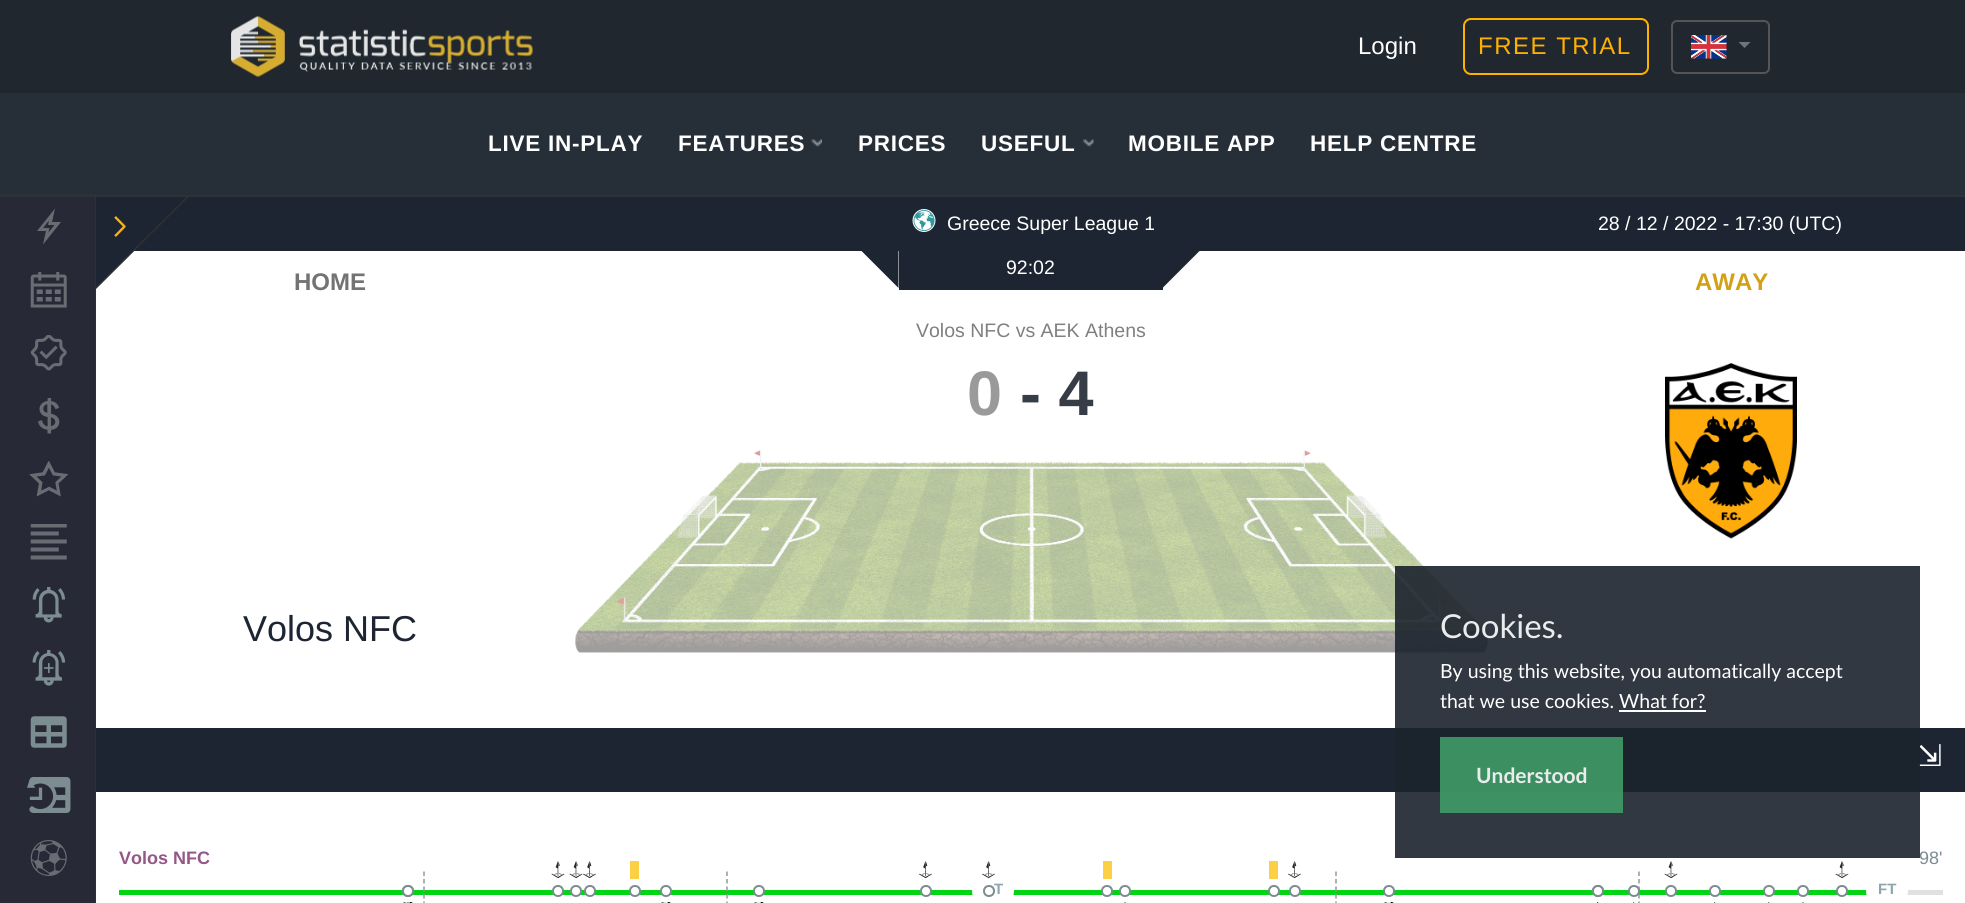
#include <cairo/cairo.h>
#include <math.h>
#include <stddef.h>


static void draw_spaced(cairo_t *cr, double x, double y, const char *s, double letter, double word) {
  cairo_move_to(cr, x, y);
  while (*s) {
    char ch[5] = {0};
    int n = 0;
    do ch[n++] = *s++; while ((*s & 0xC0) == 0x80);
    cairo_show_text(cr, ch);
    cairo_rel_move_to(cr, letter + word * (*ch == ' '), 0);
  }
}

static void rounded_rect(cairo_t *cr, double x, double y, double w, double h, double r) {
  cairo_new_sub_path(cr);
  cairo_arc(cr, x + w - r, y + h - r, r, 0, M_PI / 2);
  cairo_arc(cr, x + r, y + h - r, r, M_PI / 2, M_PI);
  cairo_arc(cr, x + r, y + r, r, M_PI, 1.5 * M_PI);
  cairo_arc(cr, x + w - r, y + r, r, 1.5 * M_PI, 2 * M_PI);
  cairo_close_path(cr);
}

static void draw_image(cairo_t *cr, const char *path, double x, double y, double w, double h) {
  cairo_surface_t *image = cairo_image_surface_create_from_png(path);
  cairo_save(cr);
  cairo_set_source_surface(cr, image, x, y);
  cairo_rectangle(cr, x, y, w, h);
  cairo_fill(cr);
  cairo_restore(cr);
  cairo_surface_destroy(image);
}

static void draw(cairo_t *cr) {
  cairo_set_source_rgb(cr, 38 / 255.0, 47 / 255.0, 56 / 255.0);
  cairo_paint(cr);
  cairo_set_source_rgb(cr, 32 / 255.0, 39 / 255.0, 47 / 255.0);
  cairo_rectangle(cr, 0, 0, 1965, 93);
  cairo_fill(cr);
  draw_image(cr, "images/1.png", 231, 16, 302, 61);
  rounded_rect(cr, 1464, 19, 184, 55, 7);
  cairo_set_source_rgb(cr, 1, 177 / 255.0, 0);
  cairo_stroke(cr);
  rounded_rect(cr, 1672, 21, 97, 52, 5);
  cairo_set_source_rgb(cr, 85 / 255.0, 85 / 255.0, 85 / 255.0);
  cairo_stroke(cr);
  draw_image(cr, "images/2.png", 1691, 35, 36, 24);
  cairo_set_source_rgb(cr, 108 / 255.0, 117 / 255.0, 125 / 255.0);
  cairo_new_path(cr);
  cairo_move_to(cr, 1738.5, 42);
  cairo_line_to(cr, 1750.5, 42);
  cairo_line_to(cr, 1744.5, 48);
  cairo_close_path(cr);
  cairo_fill(cr);
  draw_image(cr, "images/3.png", 811, 139, 11, 8);
  draw_image(cr, "images/4.png", 1083, 139, 11, 8);
  cairo_set_source_rgb(cr, 45 / 255.0, 50 / 255.0, 55 / 255.0);
  cairo_rectangle(cr, 97, 195, 1868, 2);
  cairo_fill(cr);
  cairo_set_source_rgb(cr, 40 / 255.0, 41 / 255.0, 54 / 255.0);
  cairo_rectangle(cr, 0, 197, 95, 706);
  cairo_fill(cr);
  cairo_set_source_rgb(cr, 45 / 255.0, 50 / 255.0, 55 / 255.0);
  cairo_rectangle(cr, 0, 194, 96, 1);
  cairo_fill(cr);
  cairo_rectangle(cr, 95, 194, 2, 709);
  cairo_fill(cr);
  cairo_rectangle(cr, 0, 195, 95, 2);
  cairo_fill(cr);
  cairo_set_source_rgb(cr, 107 / 255.0, 107 / 255.0, 115 / 255.0);
  cairo_new_path(cr);
  cairo_move_to(cr, 55, 208.5);
  cairo_line_to(cr, 37, 231);
  cairo_line_to(cr, 46, 231);
  cairo_line_to(cr, 43, 244.5);
  cairo_line_to(cr, 61, 222);
  cairo_line_to(cr, 52, 222);
  cairo_close_path(cr);
  cairo_move_to(cr, 49, 220.5);
  cairo_line_to(cr, 48, 225);
  cairo_line_to(cr, 54.5, 225);
  cairo_line_to(cr, 48.5, 232.5);
  cairo_line_to(cr, 49.5, 228);
  cairo_line_to(cr, 43, 228);
  cairo_close_path(cr);
  cairo_fill(cr);
  draw_image(cr, "images/5.png", 30, 272, 37, 36);
  draw_image(cr, "images/6.png", 30, 335, 37, 36);
  draw_image(cr, "images/7.png", 38, 398, 22, 36);
  draw_image(cr, "images/8.png", 29, 461, 40, 36);
  draw_image(cr, "images/9.png", 30, 524, 37, 36);
  draw_image(cr, "images/10.png", 32, 587, 33, 36);
  draw_image(cr, "images/11.png", 32, 650, 34, 36);
  draw_image(cr, "images/12.png", 30, 716, 37, 32);
  draw_image(cr, "images/13.png", 27, 777, 44, 36);
  draw_image(cr, "images/14.png", 30, 840, 37, 36);
  cairo_set_source_rgb(cr, 28 / 255.0, 37 / 255.0, 49 / 255.0);
  cairo_rectangle(cr, 133, 197, 1832, 54);
  cairo_fill(cr);
  cairo_set_source_rgb(cr, 1, 1, 1);
  cairo_rectangle(cr, 96, 251, 1869, 477);
  cairo_fill(cr);
  cairo_save(cr);
  cairo_rectangle(cr, 96, 197, 95, 94);
  cairo_clip(cr);
  cairo_set_source_rgb(cr, 28 / 255.0, 37 / 255.0, 49 / 255.0);
  cairo_new_path(cr);
  cairo_move_to(cr, 189, 196);
  cairo_line_to(cr, 95, 289);
  cairo_line_to(cr, 95, 196);
  cairo_close_path(cr);
  cairo_fill(cr);
  cairo_new_path(cr);
  cairo_move_to(cr, 188.5, 196);
  cairo_line_to(cr, 95, 289);
  cairo_line_to(cr, 95, 196);
  cairo_close_path(cr);
  cairo_set_source_rgb(cr, 45 / 255.0, 50 / 255.0, 55 / 255.0);
  cairo_set_line_width(cr, 1.5);
  cairo_stroke(cr);
  cairo_restore(cr);
  draw_image(cr, "images/15.png", 114, 216, 12, 21);
  draw_image(cr, "images/16.png", 912, 209, 24, 23);
  cairo_set_source_rgb(cr, 28 / 255.0, 37 / 255.0, 49 / 255.0);
  cairo_rectangle(cr, 899, 251, 264, 39);
  cairo_fill(cr);
  cairo_save(cr);
  cairo_rectangle(cr, 96, 251, 1869, 477);
  cairo_clip(cr);
  cairo_new_path(cr);
  cairo_move_to(cr, 898.5, 250.5);
  cairo_line_to(cr, 898.5, 288);
  cairo_line_to(cr, 861, 250.5);
  cairo_close_path(cr);
  cairo_fill(cr);
  cairo_new_path(cr);
  cairo_move_to(cr, 1162.5, 288);
  cairo_line_to(cr, 1162.5, 250.5);
  cairo_line_to(cr, 1200, 250.5);
  cairo_close_path(cr);
  cairo_fill(cr);
  cairo_restore(cr);
  draw_image(cr, "images/17.png", 575, 450, 913, 203);
  draw_image(cr, "images/18.png", 1665, 363, 132, 176);
  cairo_rectangle(cr, 96, 728, 1869, 64);
  cairo_fill(cr);
  cairo_set_source_rgb(cr, 1, 1, 1);
  cairo_rectangle(cr, 96, 792, 1869, 111);
  cairo_fill(cr);
  cairo_set_source_rgb(cr, 223 / 255.0, 224 / 255.0, 226 / 255.0);
  cairo_rectangle(cr, 1907, 890, 36, 5);
  cairo_fill(cr);
  cairo_set_source_rgb(cr, 0, 213 / 255.0, 19 / 255.0);
  cairo_rectangle(cr, 119, 890, 1753, 5);
  cairo_fill(cr);
  cairo_new_path(cr);
  cairo_move_to(cr, 424, 871.5);
  cairo_line_to(cr, 424, 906);
  cairo_set_source_rgb(cr, 151 / 255.0, 151 / 255.0, 151 / 255.0);
  cairo_set_line_width(cr, 1.5);
  cairo_set_dash(cr, (double[]){4.5, 3}, 2, 0);
  cairo_stroke(cr);
  cairo_new_path(cr);
  cairo_move_to(cr, 727, 871.5);
  cairo_line_to(cr, 727, 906);
  cairo_stroke(cr);
  cairo_new_path(cr);
  cairo_move_to(cr, 1336, 871.5);
  cairo_line_to(cr, 1336, 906);
  cairo_stroke(cr);
  cairo_new_path(cr);
  cairo_move_to(cr, 1639, 871.5);
  cairo_line_to(cr, 1639, 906);
  cairo_stroke(cr);
  cairo_set_source_rgb(cr, 1, 1, 1);
  cairo_arc(cr, 993, 890, 21, 0, 2 * M_PI);
  cairo_fill(cr);
  cairo_arc(cr, 1887, 890, 21, 0, 2 * M_PI);
  cairo_fill(cr);
  cairo_arc(cr, 408, 891, 5, 0, 2 * M_PI);
  cairo_set_source_rgb(cr, 123 / 255.0, 141 / 255.0, 144 / 255.0);
  cairo_set_line_width(cr, 2);
  cairo_set_dash(cr, NULL, 0, 0);
  cairo_stroke(cr);
  draw_image(cr, "images/19.png", 403, 902, 10, 1);
  cairo_set_source_rgb(cr, 1, 1, 1);
  cairo_arc(cr, 558, 891, 5, 0, 2 * M_PI);
  cairo_fill_preserve(cr);
  cairo_set_source_rgb(cr, 123 / 255.0, 141 / 255.0, 144 / 255.0);
  cairo_stroke(cr);
  draw_image(cr, "images/20.png", 551, 861, 14, 18);
  cairo_set_source_rgb(cr, 1, 1, 1);
  cairo_arc(cr, 576, 891, 5, 0, 2 * M_PI);
  cairo_fill_preserve(cr);
  cairo_set_source_rgb(cr, 123 / 255.0, 141 / 255.0, 144 / 255.0);
  cairo_stroke(cr);
  draw_image(cr, "images/20.png", 569, 861, 14, 18);
  cairo_set_source_rgb(cr, 1, 1, 1);
  cairo_arc(cr, 590, 891, 5, 0, 2 * M_PI);
  cairo_fill_preserve(cr);
  cairo_set_source_rgb(cr, 123 / 255.0, 141 / 255.0, 144 / 255.0);
  cairo_stroke(cr);
  draw_image(cr, "images/21.png", 583, 861, 13, 18);
  cairo_set_source_rgb(cr, 1, 1, 1);
  cairo_arc(cr, 635, 891, 5, 0, 2 * M_PI);
  cairo_fill_preserve(cr);
  cairo_set_source_rgb(cr, 123 / 255.0, 141 / 255.0, 144 / 255.0);
  cairo_stroke(cr);
  cairo_set_source_rgb(cr, 252 / 255.0, 207 / 255.0, 68 / 255.0);
  cairo_rectangle(cr, 630, 861, 9, 18);
  cairo_fill(cr);
  cairo_set_source_rgb(cr, 1, 1, 1);
  cairo_arc(cr, 926, 891, 5, 0, 2 * M_PI);
  cairo_fill_preserve(cr);
  cairo_set_source_rgb(cr, 123 / 255.0, 141 / 255.0, 144 / 255.0);
  cairo_stroke(cr);
  draw_image(cr, "images/21.png", 919, 861, 13, 18);
  draw_image(cr, "images/21.png", 982, 861, 13, 18);
  cairo_set_source_rgb(cr, 1, 1, 1);
  cairo_arc(cr, 1107, 891, 5, 0, 2 * M_PI);
  cairo_fill_preserve(cr);
  cairo_set_source_rgb(cr, 123 / 255.0, 141 / 255.0, 144 / 255.0);
  cairo_stroke(cr);
  cairo_set_source_rgb(cr, 252 / 255.0, 207 / 255.0, 68 / 255.0);
  cairo_rectangle(cr, 1103, 861, 9, 18);
  cairo_fill(cr);
  cairo_set_source_rgb(cr, 1, 1, 1);
  cairo_arc(cr, 1274, 891, 5, 0, 2 * M_PI);
  cairo_fill_preserve(cr);
  cairo_set_source_rgb(cr, 123 / 255.0, 141 / 255.0, 144 / 255.0);
  cairo_stroke(cr);
  cairo_set_source_rgb(cr, 252 / 255.0, 207 / 255.0, 68 / 255.0);
  cairo_rectangle(cr, 1269, 861, 9, 18);
  cairo_fill(cr);
  cairo_set_source_rgb(cr, 1, 1, 1);
  cairo_arc(cr, 1295, 891, 5, 0, 2 * M_PI);
  cairo_fill_preserve(cr);
  cairo_set_source_rgb(cr, 123 / 255.0, 141 / 255.0, 144 / 255.0);
  cairo_stroke(cr);
  draw_image(cr, "images/21.png", 1288, 861, 13, 18);
  cairo_set_source_rgb(cr, 1, 1, 1);
  cairo_arc(cr, 1671, 891, 5, 0, 2 * M_PI);
  cairo_fill_preserve(cr);
  cairo_set_source_rgb(cr, 123 / 255.0, 141 / 255.0, 144 / 255.0);
  cairo_stroke(cr);
  draw_image(cr, "images/20.png", 1664, 861, 14, 18);
  cairo_set_source_rgb(cr, 1, 1, 1);
  cairo_arc(cr, 1842, 891, 5, 0, 2 * M_PI);
  cairo_fill_preserve(cr);
  cairo_set_source_rgb(cr, 123 / 255.0, 141 / 255.0, 144 / 255.0);
  cairo_stroke(cr);
  draw_image(cr, "images/20.png", 1835, 861, 14, 18);
  cairo_set_source_rgb(cr, 1, 1, 1);
  cairo_arc(cr, 408, 891, 5, 0, 2 * M_PI);
  cairo_fill_preserve(cr);
  cairo_set_source_rgb(cr, 123 / 255.0, 141 / 255.0, 144 / 255.0);
  cairo_stroke(cr);
  draw_image(cr, "images/22.png", 407, 902, 2, 1);
  cairo_set_source_rgb(cr, 1, 1, 1);
  cairo_arc(cr, 666, 891, 5, 0, 2 * M_PI);
  cairo_fill_preserve(cr);
  cairo_set_source_rgb(cr, 123 / 255.0, 141 / 255.0, 144 / 255.0);
  cairo_stroke(cr);
  draw_image(cr, "images/19.png", 661, 902, 10, 1);
  cairo_set_source_rgb(cr, 1, 1, 1);
  cairo_arc(cr, 759, 891, 5, 0, 2 * M_PI);
  cairo_fill_preserve(cr);
  cairo_set_source_rgb(cr, 123 / 255.0, 141 / 255.0, 144 / 255.0);
  cairo_stroke(cr);
  draw_image(cr, "images/19.png", 754, 902, 10, 1);
  cairo_set_source_rgb(cr, 1, 1, 1);
  cairo_arc(cr, 1125, 891, 5, 0, 2 * M_PI);
  cairo_fill_preserve(cr);
  cairo_set_source_rgb(cr, 123 / 255.0, 141 / 255.0, 144 / 255.0);
  cairo_stroke(cr);
  draw_image(cr, "images/23.png", 1124, 902, 2, 1);
  cairo_set_source_rgb(cr, 1, 1, 1);
  cairo_arc(cr, 1389, 891, 5, 0, 2 * M_PI);
  cairo_fill_preserve(cr);
  cairo_set_source_rgb(cr, 123 / 255.0, 141 / 255.0, 144 / 255.0);
  cairo_stroke(cr);
  draw_image(cr, "images/19.png", 1384, 902, 10, 1);
  cairo_arc(cr, 1598, 891, 5, 0, 2 * M_PI);
  cairo_stroke(cr);
  draw_image(cr, "images/24.png", 1597, 902, 2, 1);
  cairo_set_source_rgb(cr, 1, 1, 1);
  cairo_arc(cr, 1598, 891, 5, 0, 2 * M_PI);
  cairo_fill_preserve(cr);
  cairo_set_source_rgb(cr, 123 / 255.0, 141 / 255.0, 144 / 255.0);
  cairo_stroke(cr);
  draw_image(cr, "images/25.png", 1597, 902, 2, 1);
  cairo_set_source_rgb(cr, 1, 1, 1);
  cairo_arc(cr, 1634, 891, 5, 0, 2 * M_PI);
  cairo_fill_preserve(cr);
  cairo_set_source_rgb(cr, 123 / 255.0, 141 / 255.0, 144 / 255.0);
  cairo_stroke(cr);
  draw_image(cr, "images/24.png", 1633, 902, 2, 1);
  cairo_set_source_rgb(cr, 1, 1, 1);
  cairo_arc(cr, 1715, 891, 5, 0, 2 * M_PI);
  cairo_fill_preserve(cr);
  cairo_set_source_rgb(cr, 123 / 255.0, 141 / 255.0, 144 / 255.0);
  cairo_stroke(cr);
  draw_image(cr, "images/24.png", 1714, 902, 2, 1);
  cairo_set_source_rgb(cr, 1, 1, 1);
  cairo_arc(cr, 1769, 891, 5, 0, 2 * M_PI);
  cairo_fill_preserve(cr);
  cairo_set_source_rgb(cr, 123 / 255.0, 141 / 255.0, 144 / 255.0);
  cairo_stroke(cr);
  draw_image(cr, "images/24.png", 1768, 902, 2, 1);
  cairo_set_source_rgb(cr, 1, 1, 1);
  cairo_arc(cr, 1803, 891, 5, 0, 2 * M_PI);
  cairo_fill_preserve(cr);
  cairo_set_source_rgb(cr, 123 / 255.0, 141 / 255.0, 144 / 255.0);
  cairo_stroke(cr);
  draw_image(cr, "images/23.png", 1802, 902, 2, 1);
  cairo_select_font_face(cr, "Liberation Sans", CAIRO_FONT_SLANT_NORMAL, CAIRO_FONT_WEIGHT_NORMAL);
  cairo_set_font_size(cr, 24);
  cairo_set_source_rgb(cr, 1, 1, 1);
  cairo_move_to(cr, 1358, 54);
  cairo_show_text(cr, "Login");
  cairo_set_source_rgb(cr, 1, 177 / 255.0, 0);
  draw_spaced(cr, 1478, 54, "FREE TRIAL", 1.5, 0);
  cairo_select_font_face(cr, "Liberation Sans", CAIRO_FONT_SLANT_NORMAL, CAIRO_FONT_WEIGHT_BOLD);
  cairo_set_font_size(cr, 22.5);
  cairo_set_source_rgb(cr, 1, 1, 1);
  draw_spaced(cr, 488, 151, "LIVE IN-PLAY", 0.75, 0);
  draw_spaced(cr, 678, 151, "FEATURES", 0.75, 0);
  draw_spaced(cr, 858, 151, "PRICES", 0.75, 0);
  draw_spaced(cr, 981, 151, "USEFUL", 0.75, 0);
  draw_spaced(cr, 1128, 151, "MOBILE APP", 0.75, 0);
  draw_spaced(cr, 1310, 151, "HELP CENTRE", 0.75, 0);
  cairo_select_font_face(cr, "Liberation Sans", CAIRO_FONT_SLANT_NORMAL, CAIRO_FONT_WEIGHT_NORMAL);
  cairo_set_font_size(cr, 19.5);
  cairo_move_to(cr, 947, 230);
  cairo_show_text(cr, "Greece Super League 1");
  cairo_move_to(cr, 1598, 230);
  cairo_show_text(cr, "28 / 12 / 2022 - 17:30 (UTC)");
  cairo_select_font_face(cr, "Liberation Sans", CAIRO_FONT_SLANT_NORMAL, CAIRO_FONT_WEIGHT_BOLD);
  cairo_set_font_size(cr, 24);
  cairo_set_source_rgb(cr, 115 / 255.0, 115 / 255.0, 115 / 255.0);
  cairo_move_to(cr, 294, 290);
  cairo_show_text(cr, "HOME");
  cairo_select_font_face(cr, "Liberation Sans", CAIRO_FONT_SLANT_NORMAL, CAIRO_FONT_WEIGHT_NORMAL);
  cairo_set_font_size(cr, 36);
  cairo_set_source_rgb(cr, 28 / 255.0, 37 / 255.0, 49 / 255.0);
  cairo_move_to(cr, 243, 641);
  cairo_show_text(cr, "Volos NFC");
  cairo_set_font_size(cr, 19.5);
  cairo_set_source_rgb(cr, 1, 1, 1);
  cairo_move_to(cr, 1006, 274);
  cairo_show_text(cr, "92:02");
  cairo_set_source_rgb(cr, 128 / 255.0, 128 / 255.0, 128 / 255.0);
  cairo_move_to(cr, 916, 337);
  cairo_show_text(cr, "Volos NFC vs AEK Athens");
  cairo_select_font_face(cr, "Liberation Sans", CAIRO_FONT_SLANT_NORMAL, CAIRO_FONT_WEIGHT_BOLD);
  cairo_set_font_size(cr, 63);
  cairo_set_source_rgb(cr, 154 / 255.0, 154 / 255.0, 154 / 255.0);
  cairo_move_to(cr, 967, 415);
  cairo_show_text(cr, "0");
  cairo_set_source_rgb(cr, 55 / 255.0, 61 / 255.0, 70 / 255.0);
  cairo_move_to(cr, 1020, 415);
  cairo_show_text(cr, "- 4");
  cairo_set_font_size(cr, 24);
  cairo_set_source_rgb(cr, 211 / 255.0, 161 / 255.0, 24 / 255.0);
  cairo_move_to(cr, 1695, 290);
  cairo_show_text(cr, "AWAY");
  cairo_select_font_face(cr, "DejaVu Sans", CAIRO_FONT_SLANT_NORMAL, CAIRO_FONT_WEIGHT_NORMAL);
  cairo_set_font_size(cr, 30);
  cairo_set_source_rgb(cr, 1, 1, 1);
  cairo_move_to(cr, 1917, 766);
  cairo_show_text(cr, "⇲");
  cairo_select_font_face(cr, "Liberation Sans", CAIRO_FONT_SLANT_NORMAL, CAIRO_FONT_WEIGHT_BOLD);
  cairo_set_font_size(cr, 18);
  cairo_set_source_rgb(cr, 149 / 255.0, 87 / 255.0, 135 / 255.0);
  cairo_move_to(cr, 119, 864);
  cairo_show_text(cr, "Volos NFC");
  cairo_select_font_face(cr, "Liberation Sans", CAIRO_FONT_SLANT_NORMAL, CAIRO_FONT_WEIGHT_NORMAL);
  cairo_set_source_rgb(cr, 123 / 255.0, 141 / 255.0, 144 / 255.0);
  cairo_move_to(cr, 1919, 864);
  cairo_show_text(cr, "98'");
  cairo_select_font_face(cr, "Liberation Sans", CAIRO_FONT_SLANT_NORMAL, CAIRO_FONT_WEIGHT_BOLD);
  cairo_set_font_size(cr, 15);
  cairo_set_source_rgb(cr, 141 / 255.0, 165 / 255.0, 172 / 255.0);
  cairo_move_to(cr, 994, 894);
  cairo_show_text(cr, "T");
  cairo_move_to(cr, 1878, 894);
  cairo_show_text(cr, "FT");
  cairo_new_path(cr);
  cairo_arc(cr, 989, 891, 5, 0, 2 * M_PI);
  cairo_set_source_rgb(cr, 123 / 255.0, 141 / 255.0, 144 / 255.0);
  cairo_stroke(cr);
  cairo_set_source_rgba(cr, 27 / 255.0, 35 / 255.0, 45 / 255.0, 0.9);
  cairo_rectangle(cr, 1395, 566, 525, 292);
  cairo_fill(cr);
  cairo_select_font_face(cr, "Lato", CAIRO_FONT_SLANT_NORMAL, CAIRO_FONT_WEIGHT_NORMAL);
  cairo_set_font_size(cr, 33);
  cairo_set_source_rgb(cr, 234 / 255.0, 235 / 255.0, 236 / 255.0);
  cairo_move_to(cr, 1440, 638);
  cairo_show_text(cr, "Cookies.");
  cairo_set_font_size(cr, 19.5);
  cairo_set_source_rgb(cr, 1, 1, 1);
  cairo_move_to(cr, 1440, 678);
  cairo_show_text(cr, "By using this website, you automatically accept");
  cairo_move_to(cr, 1440, 708);
  cairo_show_text(cr, "that we use cookies. What for?");
  cairo_rectangle(cr, 1619, 710, 87, 2);
  cairo_fill(cr);
  cairo_set_source_rgba(cr, 62 / 255.0, 155 / 255.0, 103 / 255.0, 0.9);
  cairo_rectangle(cr, 1440, 737, 183, 76);
  cairo_fill(cr);
  cairo_select_font_face(cr, "Lato", CAIRO_FONT_SLANT_NORMAL, CAIRO_FONT_WEIGHT_BOLD);
  cairo_set_font_size(cr, 21);
  cairo_set_source_rgb(cr, 234 / 255.0, 235 / 255.0, 236 / 255.0);
  cairo_move_to(cr, 1476, 783);
  cairo_show_text(cr, "Understood");
}

int main(void) {
  cairo_surface_t *surface = cairo_image_surface_create(CAIRO_FORMAT_RGB24, 1965, 903);
  cairo_t *cr = cairo_create(surface);
  cairo_font_options_t *options = cairo_font_options_create();
  cairo_font_options_set_hint_metrics(options, CAIRO_HINT_METRICS_OFF);
  cairo_font_options_set_hint_style(options, CAIRO_HINT_STYLE_NONE);
  cairo_set_font_options(cr, options);
  cairo_set_miter_limit(cr, 4);
  draw(cr);
  cairo_surface_write_to_png(surface, "out.png");
  cairo_font_options_destroy(options);
  cairo_destroy(cr);
  cairo_surface_destroy(surface);
  return 0;
}
